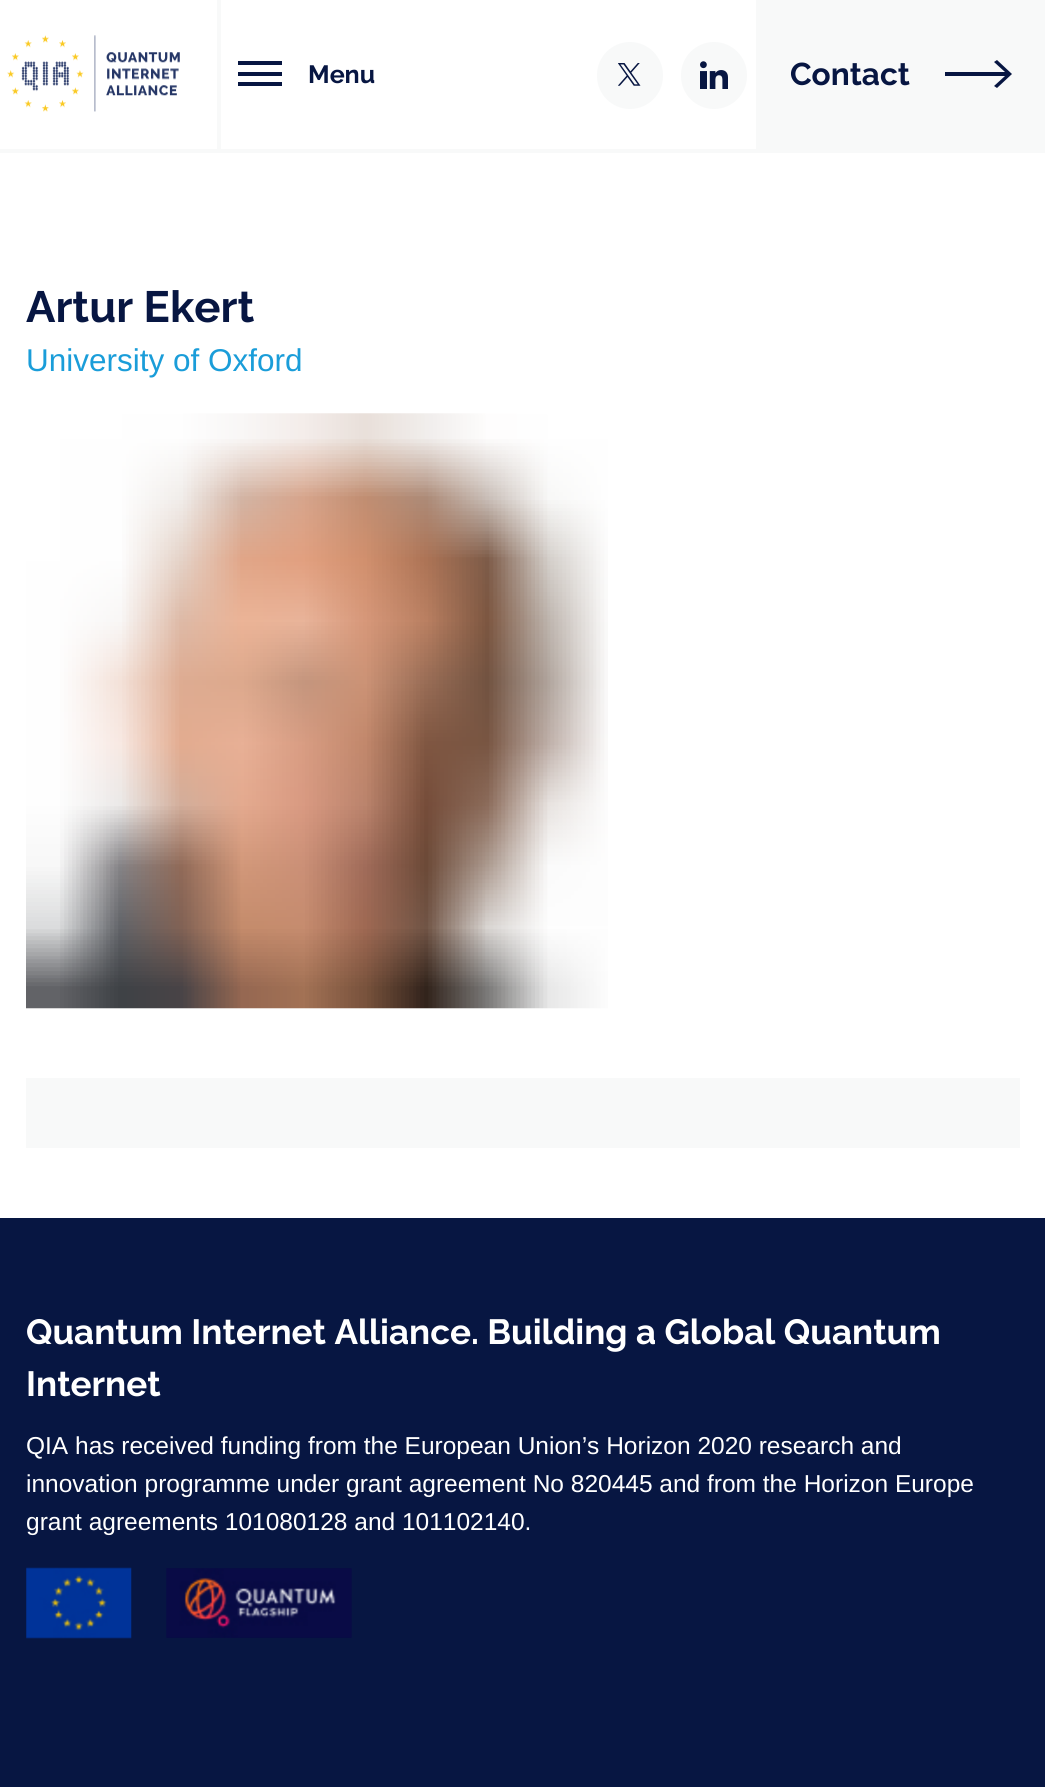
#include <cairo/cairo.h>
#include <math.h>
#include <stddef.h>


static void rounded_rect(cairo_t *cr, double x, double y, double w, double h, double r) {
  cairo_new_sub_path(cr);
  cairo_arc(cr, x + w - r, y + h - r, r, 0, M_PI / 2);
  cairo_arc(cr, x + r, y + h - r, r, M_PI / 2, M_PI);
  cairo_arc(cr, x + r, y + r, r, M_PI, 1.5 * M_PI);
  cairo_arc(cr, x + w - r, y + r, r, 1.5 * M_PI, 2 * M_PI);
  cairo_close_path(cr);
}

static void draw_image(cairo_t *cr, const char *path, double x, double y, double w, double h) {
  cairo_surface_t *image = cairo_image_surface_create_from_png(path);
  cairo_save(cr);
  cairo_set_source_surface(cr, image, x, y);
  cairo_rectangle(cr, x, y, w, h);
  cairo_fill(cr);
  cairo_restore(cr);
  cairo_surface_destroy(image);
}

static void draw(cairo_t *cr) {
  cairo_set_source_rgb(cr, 1, 1, 1);
  cairo_paint(cr);
  cairo_set_source_rgb(cr, 248 / 255.0, 249 / 255.0, 249 / 255.0);
  cairo_rectangle(cr, 0, 149, 1045, 4);
  cairo_fill(cr);
  draw_image(cr, "images/1.png", 7, 35, 173, 77);
  cairo_rectangle(cr, 217, 0, 4, 149);
  cairo_fill(cr);
  cairo_set_source_rgb(cr, 7 / 255.0, 22 / 255.0, 66 / 255.0);
  cairo_rectangle(cr, 238, 72, 44, 4);
  cairo_fill(cr);
  cairo_rectangle(cr, 238, 61, 44, 4);
  cairo_fill(cr);
  cairo_rectangle(cr, 238, 82, 44, 4);
  cairo_fill(cr);
  cairo_set_source_rgb(cr, 248 / 255.0, 249 / 255.0, 249 / 255.0);
  rounded_rect(cr, 597, 42, 66, 67, 33);
  cairo_fill(cr);
  draw_image(cr, "images/2.png", 618, 63, 23, 23);
  rounded_rect(cr, 681, 42, 66, 67, 33);
  cairo_fill(cr);
  draw_image(cr, "images/3.png", 700, 61, 28, 28);
  cairo_rectangle(cr, 756, 0, 289, 149);
  cairo_fill(cr);
  cairo_set_source_rgb(cr, 7 / 255.0, 22 / 255.0, 66 / 255.0);
  cairo_set_fill_rule(cr, CAIRO_FILL_RULE_EVEN_ODD);
  cairo_new_path(cr);
  cairo_move_to(cr, 997, 60);
  cairo_line_to(cr, 1012, 74);
  cairo_line_to(cr, 997, 88);
  cairo_line_to(cr, 994, 86);
  cairo_line_to(cr, 1005, 76);
  cairo_line_to(cr, 945, 76);
  cairo_line_to(cr, 945, 72);
  cairo_line_to(cr, 1005, 72);
  cairo_line_to(cr, 994, 62);
  cairo_close_path(cr);
  cairo_fill(cr);
  draw_image(cr, "images/4.png", 26, 413, 582, 596);
  cairo_set_source_rgb(cr, 248 / 255.0, 249 / 255.0, 249 / 255.0);
  cairo_rectangle(cr, 26, 1078, 994, 70);
  cairo_fill(cr);
  cairo_set_source_rgb(cr, 7 / 255.0, 22 / 255.0, 66 / 255.0);
  cairo_rectangle(cr, 0, 1218, 1045, 569);
  cairo_fill(cr);
  draw_image(cr, "images/5.png", 26, 1567, 106, 72);
  draw_image(cr, "images/6.png", 166, 1568, 186, 70);
  cairo_select_font_face(cr, "Raleway Thin", CAIRO_FONT_SLANT_NORMAL, CAIRO_FONT_WEIGHT_NORMAL);
  cairo_set_font_size(cr, 25);
  cairo_move_to(cr, 308, 83);
  cairo_show_text(cr, "Menu");
  cairo_set_font_size(cr, 31.5);
  cairo_move_to(cr, 790, 85);
  cairo_show_text(cr, "Contact");
  cairo_set_font_size(cr, 43.75);
  cairo_move_to(cr, 26, 322);
  cairo_show_text(cr, "Artur Ekert");
  cairo_select_font_face(cr, "Liberation Sans", CAIRO_FONT_SLANT_NORMAL, CAIRO_FONT_WEIGHT_NORMAL);
  cairo_set_font_size(cr, 31.5);
  cairo_set_source_rgb(cr, 26 / 255.0, 157 / 255.0, 217 / 255.0);
  cairo_move_to(cr, 26, 371);
  cairo_show_text(cr, "University of Oxford");
  cairo_select_font_face(cr, "Raleway Thin", CAIRO_FONT_SLANT_NORMAL, CAIRO_FONT_WEIGHT_NORMAL);
  cairo_set_font_size(cr, 35);
  cairo_set_source_rgb(cr, 1, 1, 1);
  cairo_move_to(cr, 26, 1344);
  cairo_show_text(cr, "Quantum Internet Alliance. Building a Global Quantum");
  cairo_move_to(cr, 26, 1396);
  cairo_show_text(cr, "Internet");
  cairo_select_font_face(cr, "Liberation Sans", CAIRO_FONT_SLANT_NORMAL, CAIRO_FONT_WEIGHT_NORMAL);
  cairo_set_font_size(cr, 24.5);
  cairo_move_to(cr, 26, 1454);
  cairo_show_text(cr, "QIA has received funding from the European Union’s Horizon 2020 research and");
  cairo_move_to(cr, 26, 1492);
  cairo_show_text(cr, "innovation programme under grant agreement No 820445 and from the Horizon Europe");
  cairo_move_to(cr, 26, 1530);
  cairo_show_text(cr, "grant agreements 101080128 and 101102140.");
}

int main(void) {
  cairo_surface_t *surface = cairo_image_surface_create(CAIRO_FORMAT_RGB24, 1045, 1787);
  cairo_t *cr = cairo_create(surface);
  cairo_font_options_t *options = cairo_font_options_create();
  cairo_font_options_set_hint_metrics(options, CAIRO_HINT_METRICS_OFF);
  cairo_font_options_set_hint_style(options, CAIRO_HINT_STYLE_NONE);
  cairo_set_font_options(cr, options);
  cairo_set_miter_limit(cr, 4);
  draw(cr);
  cairo_surface_write_to_png(surface, "out.png");
  cairo_font_options_destroy(options);
  cairo_destroy(cr);
  cairo_surface_destroy(surface);
  return 0;
}
